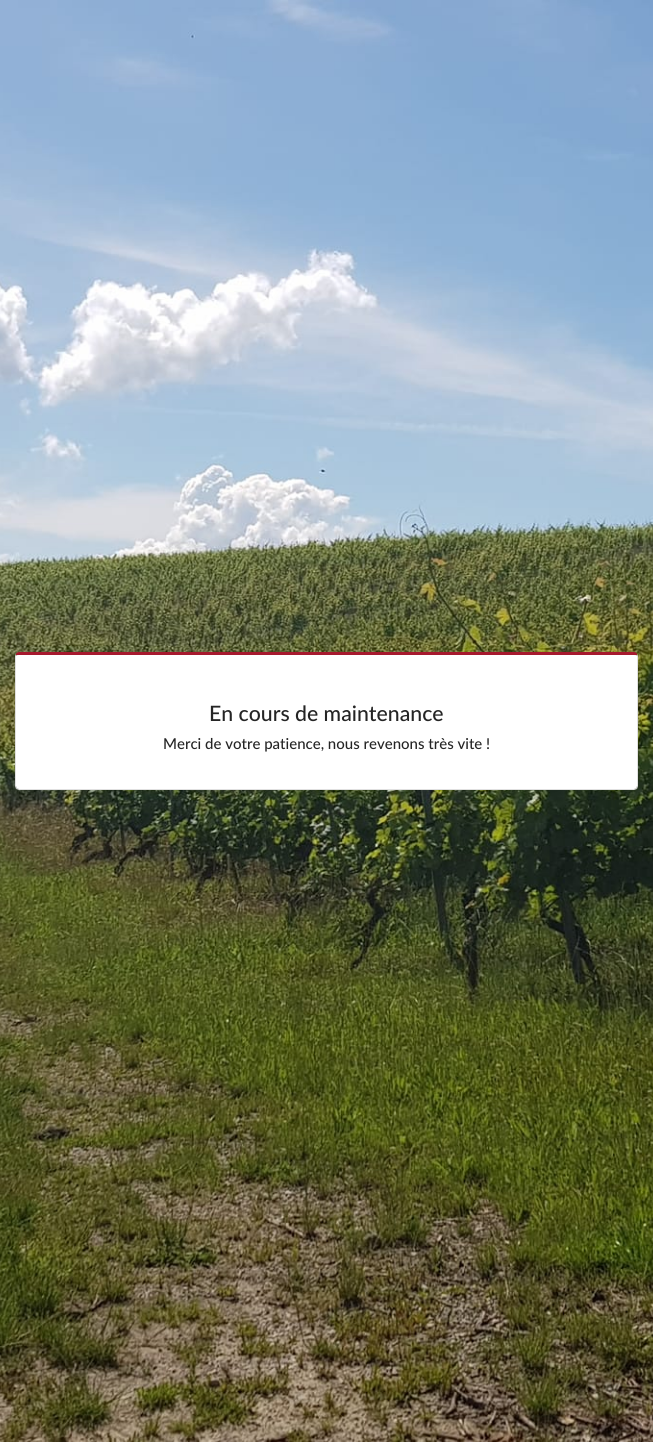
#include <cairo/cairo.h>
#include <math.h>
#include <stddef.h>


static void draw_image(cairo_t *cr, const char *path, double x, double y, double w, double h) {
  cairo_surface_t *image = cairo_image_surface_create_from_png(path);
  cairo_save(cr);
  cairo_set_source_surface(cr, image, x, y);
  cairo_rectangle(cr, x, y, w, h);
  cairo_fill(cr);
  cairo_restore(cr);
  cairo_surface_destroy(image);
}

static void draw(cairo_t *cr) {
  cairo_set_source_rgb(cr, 1, 1, 1);
  cairo_paint(cr);
  draw_image(cr, "images/1.png", 0, 0, 653, 1442);
  cairo_set_source_rgb(cr, 1, 1, 1);
  cairo_new_path(cr);
  cairo_move_to(cr, 19, 655);
  cairo_line_to(cr, 634, 655);
  cairo_curve_to(cr, 636, 655, 637, 655, 637, 656);
  cairo_line_to(cr, 637, 786);
  cairo_curve_to(cr, 637, 788, 636, 789, 634, 789);
  cairo_line_to(cr, 19, 789);
  cairo_curve_to(cr, 17, 789, 16, 788, 16, 786);
  cairo_line_to(cr, 16, 656);
  cairo_curve_to(cr, 16, 655, 17, 655, 19, 655);
  cairo_close_path(cr);
  cairo_fill(cr);
  cairo_set_source_rgb(cr, 166 / 255.0, 25 / 255.0, 46 / 255.0);
  cairo_new_path(cr);
  cairo_move_to(cr, 19, 652);
  cairo_curve_to(cr, 18, 652, 16, 653, 16, 654);
  cairo_line_to(cr, 16, 655);
  cairo_line_to(cr, 18, 655);
  cairo_line_to(cr, 326, 655);
  cairo_line_to(cr, 635, 655);
  cairo_line_to(cr, 637, 655);
  cairo_line_to(cr, 637, 654);
  cairo_curve_to(cr, 637, 653, 635, 652, 634, 652);
  cairo_close_path(cr);
  cairo_fill(cr);
  cairo_set_source_rgb(cr, 224 / 255.0, 224 / 255.0, 224 / 255.0);
  cairo_new_path(cr);
  cairo_move_to(cr, 638, 786);
  cairo_line_to(cr, 638, 656);
  cairo_line_to(cr, 637, 654);
  cairo_line_to(cr, 637, 655);
  cairo_line_to(cr, 637, 786);
  cairo_line_to(cr, 636, 788);
  cairo_line_to(cr, 637, 789);
  cairo_close_path(cr);
  cairo_fill(cr);
  cairo_new_path(cr);
  cairo_move_to(cr, 19, 790);
  cairo_line_to(cr, 634, 790);
  cairo_line_to(cr, 637, 789);
  cairo_line_to(cr, 636, 788);
  cairo_line_to(cr, 634, 789);
  cairo_line_to(cr, 19, 789);
  cairo_line_to(cr, 17, 788);
  cairo_line_to(cr, 16, 789);
  cairo_close_path(cr);
  cairo_fill(cr);
  cairo_new_path(cr);
  cairo_move_to(cr, 15, 656);
  cairo_line_to(cr, 15, 786);
  cairo_line_to(cr, 16, 789);
  cairo_line_to(cr, 17, 788);
  cairo_line_to(cr, 16, 786);
  cairo_line_to(cr, 16, 655);
  cairo_line_to(cr, 16, 654);
  cairo_close_path(cr);
  cairo_fill(cr);
  cairo_select_font_face(cr, "Lato Medium", CAIRO_FONT_SLANT_NORMAL, CAIRO_FONT_WEIGHT_NORMAL);
  cairo_set_font_size(cr, 21.25);
  cairo_set_source_rgb(cr, 37 / 255.0, 37 / 255.0, 37 / 255.0);
  cairo_move_to(cr, 209, 721);
  cairo_show_text(cr, "En cours de maintenance");
  cairo_set_font_size(cr, 15);
  cairo_move_to(cr, 163, 749);
  cairo_show_text(cr, "Merci de votre patience, nous revenons très vite !");
}

int main(void) {
  cairo_surface_t *surface = cairo_image_surface_create(CAIRO_FORMAT_RGB24, 653, 1442);
  cairo_t *cr = cairo_create(surface);
  cairo_font_options_t *options = cairo_font_options_create();
  cairo_font_options_set_hint_metrics(options, CAIRO_HINT_METRICS_OFF);
  cairo_font_options_set_hint_style(options, CAIRO_HINT_STYLE_NONE);
  cairo_set_font_options(cr, options);
  cairo_set_miter_limit(cr, 4);
  draw(cr);
  cairo_surface_write_to_png(surface, "out.png");
  cairo_font_options_destroy(options);
  cairo_destroy(cr);
  cairo_surface_destroy(surface);
  return 0;
}
